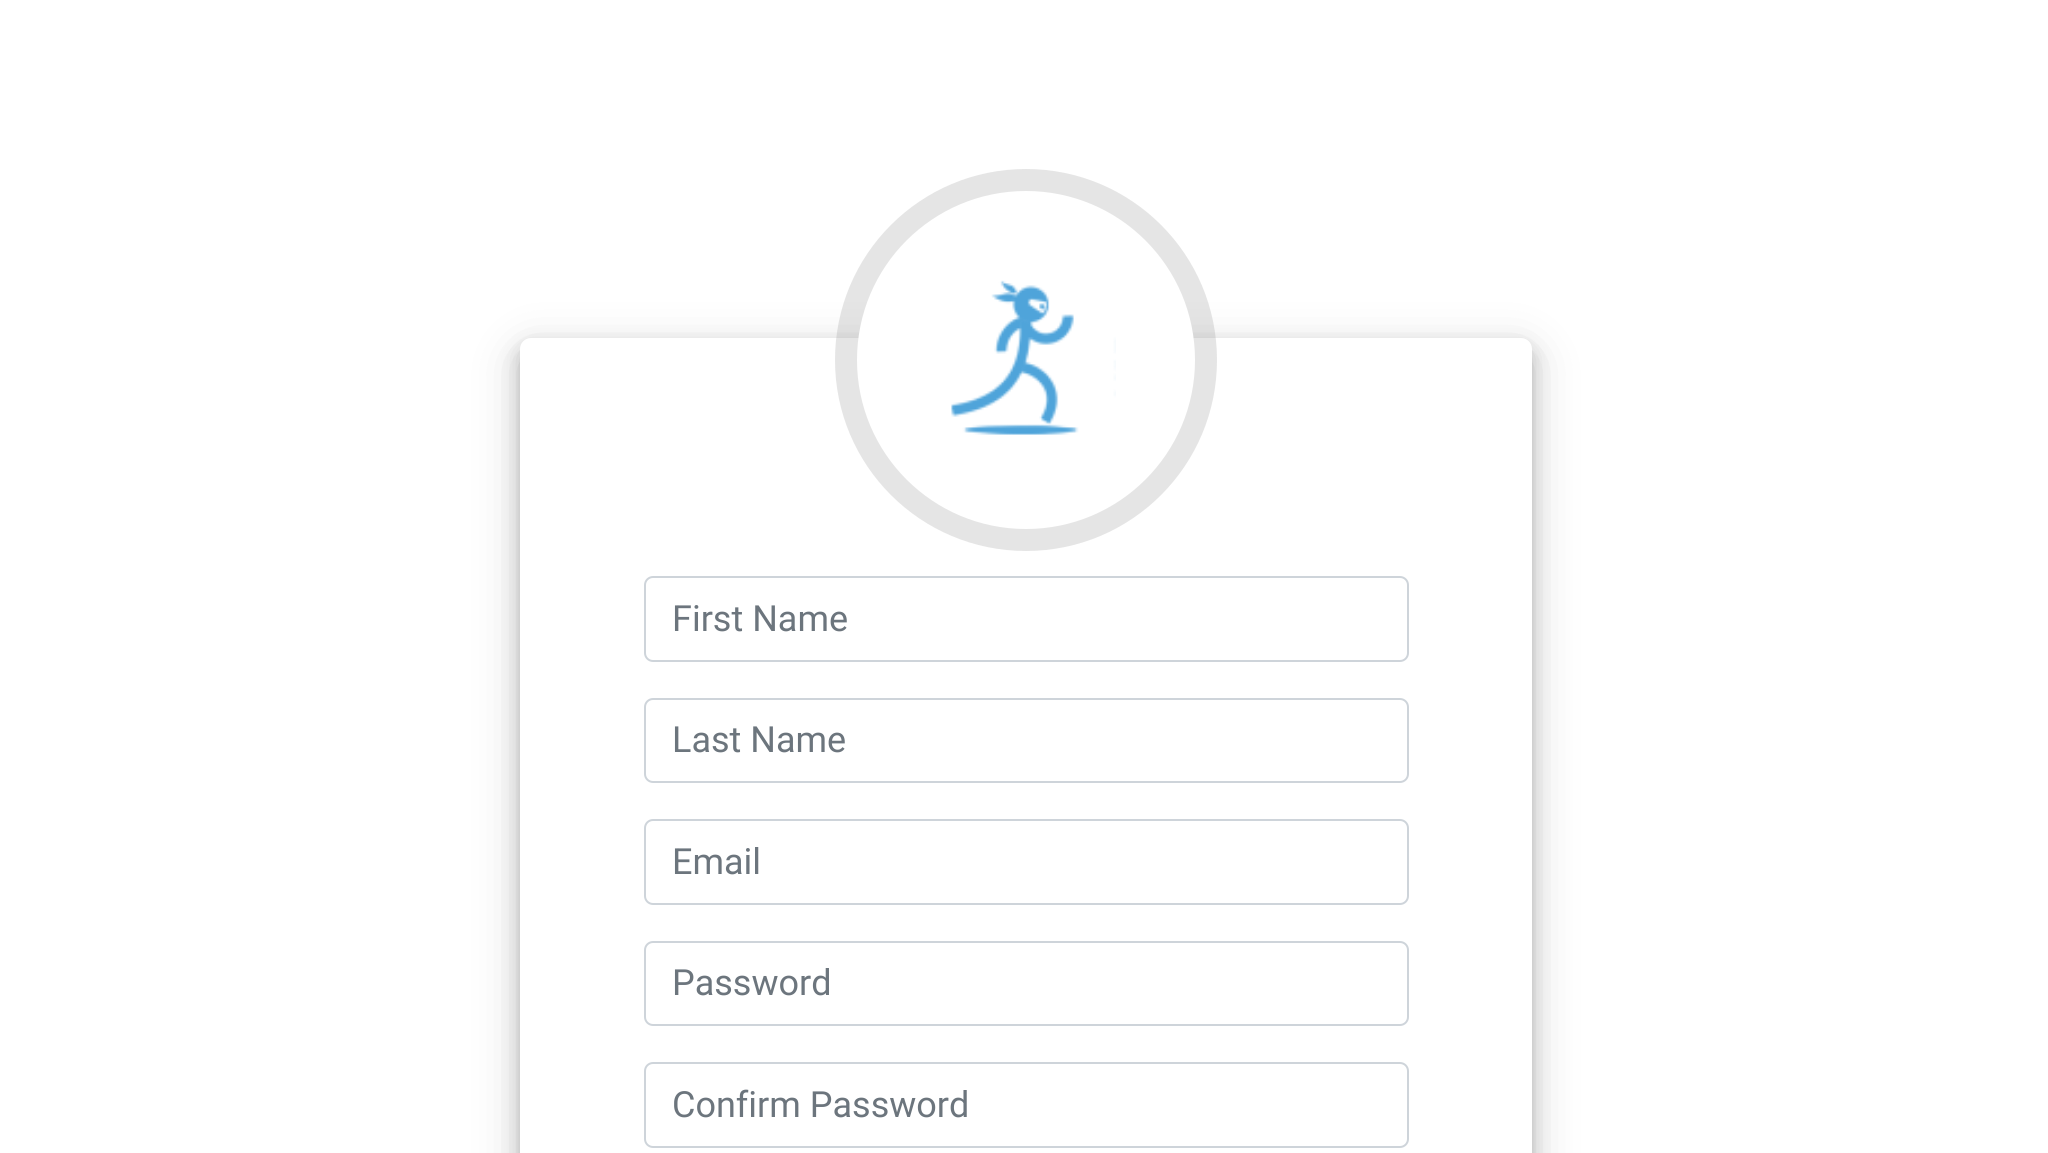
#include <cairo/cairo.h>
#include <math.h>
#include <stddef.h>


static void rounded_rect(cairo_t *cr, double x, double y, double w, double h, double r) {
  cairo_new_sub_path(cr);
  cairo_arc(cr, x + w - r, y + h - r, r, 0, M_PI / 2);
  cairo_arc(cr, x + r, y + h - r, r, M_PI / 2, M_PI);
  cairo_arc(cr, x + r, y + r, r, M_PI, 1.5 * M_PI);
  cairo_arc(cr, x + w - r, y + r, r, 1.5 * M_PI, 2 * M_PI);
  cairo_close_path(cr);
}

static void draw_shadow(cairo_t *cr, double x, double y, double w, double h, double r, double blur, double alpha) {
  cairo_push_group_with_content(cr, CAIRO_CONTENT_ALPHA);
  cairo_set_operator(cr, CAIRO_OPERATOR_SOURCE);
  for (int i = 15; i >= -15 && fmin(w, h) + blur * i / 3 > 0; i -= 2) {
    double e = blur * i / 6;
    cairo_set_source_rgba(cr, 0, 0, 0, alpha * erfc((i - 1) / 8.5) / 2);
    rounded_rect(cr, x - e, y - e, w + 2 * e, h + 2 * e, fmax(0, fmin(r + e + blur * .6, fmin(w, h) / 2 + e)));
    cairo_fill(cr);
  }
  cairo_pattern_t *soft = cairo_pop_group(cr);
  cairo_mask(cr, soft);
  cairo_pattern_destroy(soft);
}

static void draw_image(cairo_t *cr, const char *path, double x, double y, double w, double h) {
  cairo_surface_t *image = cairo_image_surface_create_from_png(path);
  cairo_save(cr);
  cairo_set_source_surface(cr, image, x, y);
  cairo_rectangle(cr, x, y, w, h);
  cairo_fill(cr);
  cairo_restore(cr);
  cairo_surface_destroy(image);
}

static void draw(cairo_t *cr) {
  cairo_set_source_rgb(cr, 1, 1, 1);
  cairo_paint(cr);
  cairo_set_source_rgb(cr, 0, 0, 0);
  draw_shadow(cr, 520, 351, 1012, 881, 11, 22.5, 0.19);
  draw_shadow(cr, 520, 347, 1012, 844, 11, 9, 0.2);
  cairo_set_source_rgb(cr, 1, 1, 1);
  rounded_rect(cr, 520, 338, 1012, 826, 11);
  cairo_fill(cr);
  cairo_set_source_rgba(cr, 128 / 255.0, 128 / 255.0, 128 / 255.0, 0.2);
  cairo_arc(cr, 1026, 360, 191, 0, 2 * M_PI);
  cairo_fill(cr);
  cairo_set_source_rgb(cr, 1, 1, 1);
  cairo_arc(cr, 1026, 360, 166.5, 0, 2 * M_PI);
  cairo_fill_preserve(cr);
  cairo_set_line_width(cr, 5);
  cairo_stroke(cr);
  draw_image(cr, "images/1.png", 951, 280, 165, 155);
  rounded_rect(cr, 645, 577, 763, 84, 8);
  cairo_set_source_rgb(cr, 206 / 255.0, 212 / 255.0, 218 / 255.0);
  cairo_set_line_width(cr, 2);
  cairo_stroke(cr);
  rounded_rect(cr, 645, 699, 763, 83, 8);
  cairo_stroke(cr);
  rounded_rect(cr, 645, 820, 763, 84, 8);
  cairo_stroke(cr);
  rounded_rect(cr, 645, 942, 763, 83, 8);
  cairo_stroke(cr);
  rounded_rect(cr, 645, 1063, 763, 84, 8);
  cairo_stroke(cr);
  cairo_select_font_face(cr, "Roboto", CAIRO_FONT_SLANT_NORMAL, CAIRO_FONT_WEIGHT_NORMAL);
  cairo_set_font_size(cr, 36);
  cairo_set_source_rgb(cr, 108 / 255.0, 117 / 255.0, 125 / 255.0);
  cairo_move_to(cr, 672, 631);
  cairo_show_text(cr, "First Name");
  cairo_move_to(cr, 672, 752);
  cairo_show_text(cr, "Last Name");
  cairo_move_to(cr, 672, 874);
  cairo_show_text(cr, "Email");
  cairo_move_to(cr, 672, 995);
  cairo_show_text(cr, "Password");
  cairo_move_to(cr, 672, 1117);
  cairo_show_text(cr, "Confirm Password");
}

int main(void) {
  cairo_surface_t *surface = cairo_image_surface_create(CAIRO_FORMAT_RGB24, 2048, 1153);
  cairo_t *cr = cairo_create(surface);
  cairo_font_options_t *options = cairo_font_options_create();
  cairo_font_options_set_hint_metrics(options, CAIRO_HINT_METRICS_OFF);
  cairo_font_options_set_hint_style(options, CAIRO_HINT_STYLE_NONE);
  cairo_set_font_options(cr, options);
  cairo_set_miter_limit(cr, 4);
  draw(cr);
  cairo_surface_write_to_png(surface, "out.png");
  cairo_font_options_destroy(options);
  cairo_destroy(cr);
  cairo_surface_destroy(surface);
  return 0;
}
